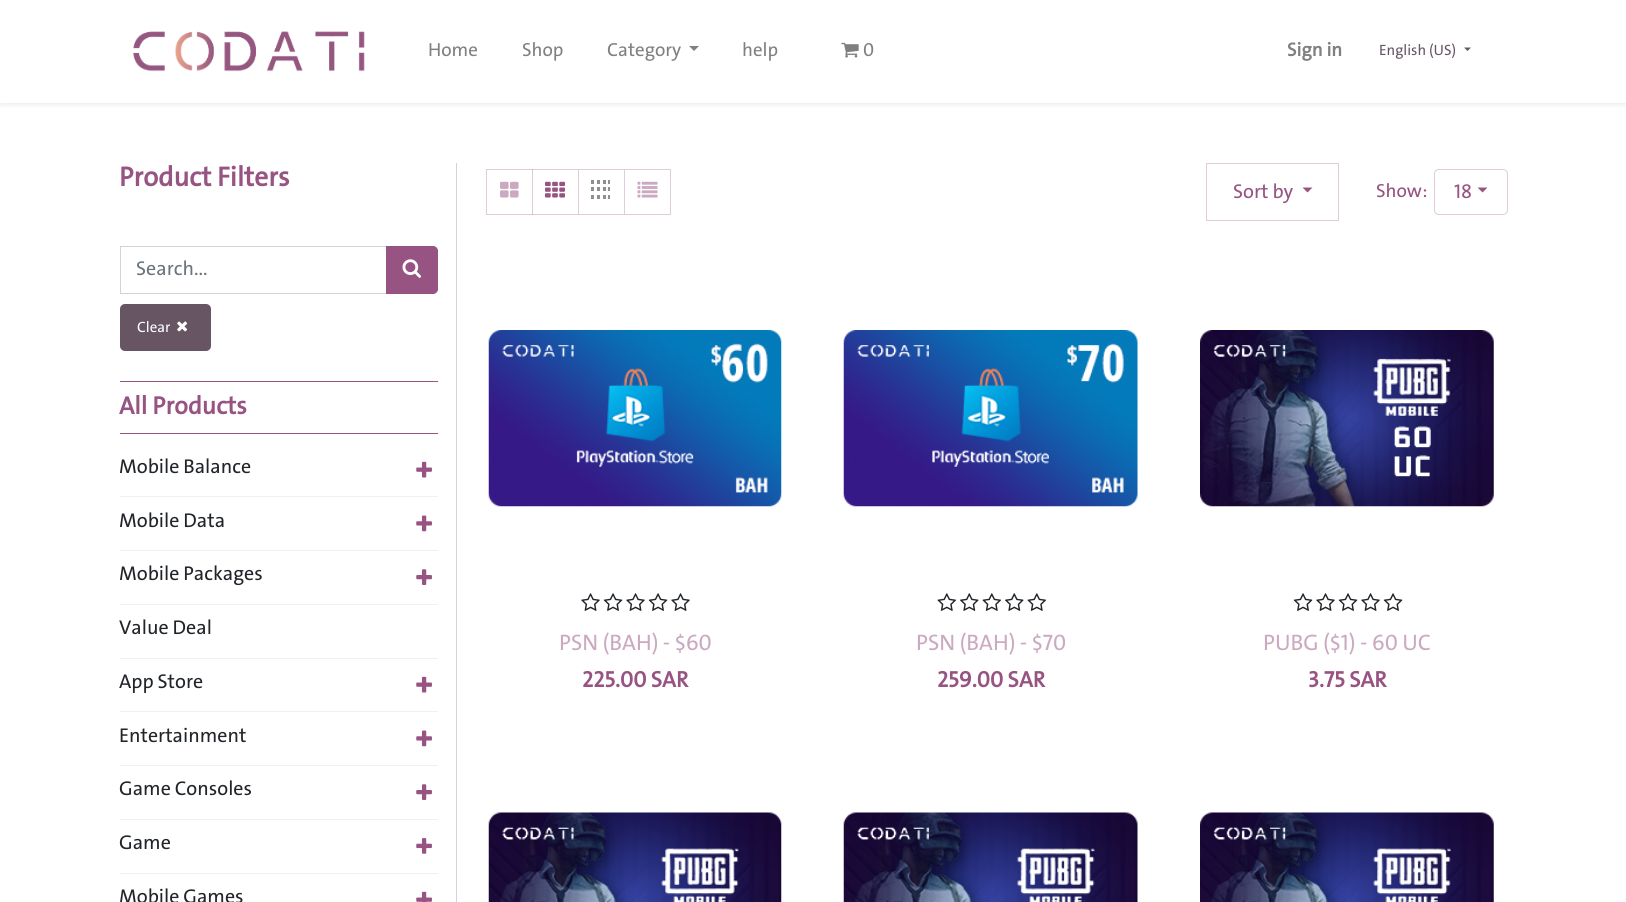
#include <cairo/cairo.h>
#include <math.h>
#include <stddef.h>


static void rounded_rect(cairo_t *cr, double x, double y, double w, double h, double r) {
  cairo_new_sub_path(cr);
  cairo_arc(cr, x + w - r, y + h - r, r, 0, M_PI / 2);
  cairo_arc(cr, x + r, y + h - r, r, M_PI / 2, M_PI);
  cairo_arc(cr, x + r, y + r, r, M_PI, 1.5 * M_PI);
  cairo_arc(cr, x + w - r, y + r, r, 1.5 * M_PI, 2 * M_PI);
  cairo_close_path(cr);
}

static void draw_shadow(cairo_t *cr, double x, double y, double w, double h, double r, double blur, double alpha) {
  cairo_push_group_with_content(cr, CAIRO_CONTENT_ALPHA);
  cairo_set_operator(cr, CAIRO_OPERATOR_SOURCE);
  for (int i = 15; i >= -15 && fmin(w, h) + blur * i / 3 > 0; i -= 2) {
    double e = blur * i / 6;
    cairo_set_source_rgba(cr, 0, 0, 0, alpha * erfc((i - 1) / 8.5) / 2);
    rounded_rect(cr, x - e, y - e, w + 2 * e, h + 2 * e, fmax(0, fmin(r + e + blur * .6, fmin(w, h) / 2 + e)));
    cairo_fill(cr);
  }
  cairo_pattern_t *soft = cairo_pop_group(cr);
  cairo_mask(cr, soft);
  cairo_pattern_destroy(soft);
}

static void draw_image(cairo_t *cr, const char *path, double x, double y, double w, double h) {
  cairo_surface_t *image = cairo_image_surface_create_from_png(path);
  cairo_save(cr);
  cairo_set_source_surface(cr, image, x, y);
  cairo_rectangle(cr, x, y, w, h);
  cairo_fill(cr);
  cairo_restore(cr);
  cairo_surface_destroy(image);
}

static void draw(cairo_t *cr) {
  cairo_set_source_rgb(cr, 1, 1, 1);
  cairo_paint(cr);
  cairo_set_source_rgb(cr, 0, 0, 0);
  draw_shadow(cr, 0, 3, 1626, 102, 0, 2.5, 0.07);
  cairo_set_source_rgb(cr, 1, 1, 1);
  cairo_rectangle(cr, 0, 0, 1626, 103);
  cairo_fill(cr);
  draw_image(cr, "images/1.png", 133, 31, 232, 41);
  cairo_set_source_rgb(cr, 128 / 255.0, 128 / 255.0, 128 / 255.0);
  cairo_new_path(cr);
  cairo_move_to(cr, 689, 46);
  cairo_line_to(cr, 699, 46);
  cairo_line_to(cr, 694, 51);
  cairo_close_path(cr);
  cairo_fill(cr);
  draw_image(cr, "images/2.png", 841, 42, 18, 16);
  cairo_set_source_rgb(cr, 104 / 255.0, 85 / 255.0, 99 / 255.0);
  cairo_new_path(cr);
  cairo_move_to(cr, 1464, 47.5);
  cairo_line_to(cr, 1471, 47.5);
  cairo_line_to(cr, 1467.5, 51);
  cairo_close_path(cr);
  cairo_fill(cr);
  cairo_set_source_rgb(cr, 206 / 255.0, 212 / 255.0, 218 / 255.0);
  cairo_rectangle(cr, 456, 163, 1, 739);
  cairo_fill(cr);
  cairo_rectangle(cr, 120.5, 246.5, 267, 47);
  cairo_set_line_width(cr, 1);
  cairo_stroke(cr);
  cairo_set_source_rgb(cr, 151 / 255.0, 83 / 255.0, 129 / 255.0);
  cairo_new_path(cr);
  cairo_move_to(cr, 386.5, 246.5);
  cairo_line_to(cr, 433, 246.5);
  cairo_curve_to(cr, 435.5, 246.5, 437.5, 248.5, 437.5, 251);
  cairo_line_to(cr, 437.5, 289);
  cairo_curve_to(cr, 437.5, 291.5, 435.5, 293.5, 433, 293.5);
  cairo_line_to(cr, 386.5, 293.5);
  cairo_close_path(cr);
  cairo_fill_preserve(cr);
  cairo_stroke(cr);
  draw_image(cr, "images/3.png", 402, 259, 20, 19);
  cairo_set_source_rgb(cr, 104 / 255.0, 85 / 255.0, 99 / 255.0);
  rounded_rect(cr, 120, 304, 91, 47, 5);
  cairo_fill(cr);
  draw_image(cr, "images/4.png", 177, 321, 11, 11);
  cairo_set_source_rgb(cr, 151 / 255.0, 83 / 255.0, 129 / 255.0);
  cairo_rectangle(cr, 120, 381, 318, 1);
  cairo_fill(cr);
  cairo_rectangle(cr, 120, 433, 318, 1);
  cairo_fill(cr);
  cairo_set_source_rgb(cr, 240 / 255.0, 240 / 255.0, 240 / 255.0);
  cairo_rectangle(cr, 120, 496, 318, 1);
  cairo_fill(cr);
  draw_image(cr, "images/5.png", 416, 461, 16, 17);
  cairo_rectangle(cr, 120, 550, 318, 1);
  cairo_fill(cr);
  draw_image(cr, "images/6.png", 416, 515, 16, 17);
  cairo_rectangle(cr, 120, 604, 318, 1);
  cairo_fill(cr);
  draw_image(cr, "images/7.png", 416, 569, 16, 16);
  cairo_rectangle(cr, 120, 658, 318, 1);
  cairo_fill(cr);
  cairo_rectangle(cr, 120, 711, 318, 1);
  cairo_fill(cr);
  draw_image(cr, "images/5.png", 416, 676, 16, 17);
  cairo_rectangle(cr, 120, 765, 318, 1);
  cairo_fill(cr);
  draw_image(cr, "images/6.png", 416, 730, 16, 17);
  cairo_rectangle(cr, 120, 819, 318, 1);
  cairo_fill(cr);
  draw_image(cr, "images/7.png", 416, 784, 16, 16);
  cairo_rectangle(cr, 120, 873, 318, 1);
  cairo_fill(cr);
  draw_image(cr, "images/8.png", 416, 838, 16, 16);
  draw_image(cr, "images/9.png", 416, 891, 16, 11);
  cairo_rectangle(cr, 486.5, 169.5, 46, 45);
  cairo_set_source_rgb(cr, 224 / 255.0, 203 / 255.0, 217 / 255.0);
  cairo_stroke(cr);
  draw_image(cr, "images/10.png", 500, 181, 19, 17);
  cairo_set_source_rgba(cr, 151 / 255.0, 83 / 255.0, 129 / 255.0, 0.3);
  cairo_new_path(cr);
  cairo_move_to(cr, 532, 169);
  cairo_line_to(cr, 579, 169);
  cairo_line_to(cr, 578, 170);
  cairo_line_to(cr, 532, 170);
  cairo_close_path(cr);
  cairo_fill(cr);
  cairo_new_path(cr);
  cairo_move_to(cr, 579, 169);
  cairo_line_to(cr, 579, 215);
  cairo_line_to(cr, 578, 214);
  cairo_line_to(cr, 578, 170);
  cairo_close_path(cr);
  cairo_fill(cr);
  cairo_new_path(cr);
  cairo_move_to(cr, 579, 215);
  cairo_line_to(cr, 532, 215);
  cairo_line_to(cr, 532, 214);
  cairo_line_to(cr, 578, 214);
  cairo_close_path(cr);
  cairo_fill(cr);
  draw_image(cr, "images/11.png", 545, 181, 20, 17);
  cairo_set_source_rgb(cr, 224 / 255.0, 203 / 255.0, 217 / 255.0);
  cairo_new_path(cr);
  cairo_move_to(cr, 579, 169);
  cairo_line_to(cr, 625, 169);
  cairo_line_to(cr, 624, 170);
  cairo_line_to(cr, 579, 170);
  cairo_close_path(cr);
  cairo_fill(cr);
  cairo_set_source_rgba(cr, 151 / 255.0, 83 / 255.0, 129 / 255.0, 0.3);
  cairo_new_path(cr);
  cairo_move_to(cr, 625, 169);
  cairo_line_to(cr, 625, 215);
  cairo_line_to(cr, 624, 214);
  cairo_line_to(cr, 624, 170);
  cairo_close_path(cr);
  cairo_fill(cr);
  cairo_new_path(cr);
  cairo_move_to(cr, 625, 215);
  cairo_line_to(cr, 579, 215);
  cairo_line_to(cr, 579, 214);
  cairo_line_to(cr, 624, 214);
  cairo_close_path(cr);
  cairo_fill(cr);
  draw_image(cr, "images/12.png", 591, 180, 19, 19);
  cairo_set_source_rgb(cr, 224 / 255.0, 203 / 255.0, 217 / 255.0);
  cairo_new_path(cr);
  cairo_move_to(cr, 625, 169);
  cairo_line_to(cr, 671, 169);
  cairo_line_to(cr, 670, 170);
  cairo_line_to(cr, 625, 170);
  cairo_close_path(cr);
  cairo_fill(cr);
  cairo_set_source_rgba(cr, 151 / 255.0, 83 / 255.0, 129 / 255.0, 0.3);
  cairo_new_path(cr);
  cairo_move_to(cr, 671, 169);
  cairo_line_to(cr, 671, 215);
  cairo_line_to(cr, 670, 214);
  cairo_line_to(cr, 670, 170);
  cairo_close_path(cr);
  cairo_fill(cr);
  cairo_new_path(cr);
  cairo_move_to(cr, 671, 215);
  cairo_line_to(cr, 625, 215);
  cairo_line_to(cr, 625, 214);
  cairo_line_to(cr, 670, 214);
  cairo_close_path(cr);
  cairo_fill(cr);
  draw_image(cr, "images/13.png", 637, 181, 21, 17);
  cairo_rectangle(cr, 1206.5, 163.5, 132, 57);
  cairo_set_source_rgb(cr, 224 / 255.0, 203 / 255.0, 217 / 255.0);
  cairo_stroke(cr);
  cairo_set_source_rgb(cr, 151 / 255.0, 83 / 255.0, 129 / 255.0);
  cairo_new_path(cr);
  cairo_move_to(cr, 1302.5, 187.5);
  cairo_line_to(cr, 1312.5, 187.5);
  cairo_line_to(cr, 1307.5, 192.5);
  cairo_close_path(cr);
  cairo_fill(cr);
  rounded_rect(cr, 1434.5, 169.5, 73, 45, 4.5);
  cairo_set_source_rgb(cr, 224 / 255.0, 203 / 255.0, 217 / 255.0);
  cairo_stroke(cr);
  cairo_set_source_rgb(cr, 151 / 255.0, 83 / 255.0, 129 / 255.0);
  cairo_new_path(cr);
  cairo_move_to(cr, 1477.5, 187.5);
  cairo_line_to(cr, 1487.5, 187.5);
  cairo_line_to(cr, 1482.5, 192.5);
  cairo_close_path(cr);
  cairo_fill(cr);
  draw_image(cr, "images/14.png", 488, 330, 294, 177);
  draw_image(cr, "images/15.png", 581, 593, 19, 18);
  draw_image(cr, "images/16.png", 603, 593, 20, 18);
  draw_image(cr, "images/15.png", 626, 593, 19, 18);
  draw_image(cr, "images/16.png", 648, 593, 20, 18);
  draw_image(cr, "images/15.png", 671, 593, 19, 18);
  draw_image(cr, "images/17.png", 843, 330, 295, 177);
  draw_image(cr, "images/18.png", 937, 593, 19, 18);
  draw_image(cr, "images/19.png", 960, 593, 19, 18);
  draw_image(cr, "images/18.png", 982, 593, 19, 18);
  draw_image(cr, "images/19.png", 1005, 593, 19, 18);
  draw_image(cr, "images/18.png", 1027, 593, 19, 18);
  draw_image(cr, "images/20.png", 1200, 330, 294, 177);
  draw_image(cr, "images/16.png", 1293, 593, 20, 18);
  draw_image(cr, "images/15.png", 1316, 593, 19, 18);
  draw_image(cr, "images/16.png", 1338, 593, 20, 18);
  draw_image(cr, "images/15.png", 1361, 593, 19, 18);
  draw_image(cr, "images/16.png", 1383, 593, 20, 18);
  draw_image(cr, "images/21.png", 488, 812, 294, 90);
  draw_image(cr, "images/22.png", 843, 812, 295, 90);
  draw_image(cr, "images/23.png", 1200, 812, 294, 90);
  cairo_select_font_face(cr, "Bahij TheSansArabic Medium", CAIRO_FONT_SLANT_NORMAL, CAIRO_FONT_WEIGHT_NORMAL);
  cairo_set_font_size(cr, 19);
  cairo_set_source_rgb(cr, 128 / 255.0, 128 / 255.0, 128 / 255.0);
  cairo_move_to(cr, 428, 56);
  cairo_show_text(cr, "Home");
  cairo_move_to(cr, 522, 56);
  cairo_show_text(cr, "Shop");
  cairo_move_to(cr, 607, 56);
  cairo_show_text(cr, "Category");
  cairo_move_to(cr, 742, 56);
  cairo_show_text(cr, "help");
  cairo_move_to(cr, 863, 56);
  cairo_show_text(cr, "0");
  cairo_select_font_face(cr, "Bahij TheSansArabic", CAIRO_FONT_SLANT_NORMAL, CAIRO_FONT_WEIGHT_BOLD);
  cairo_move_to(cr, 1287, 56);
  cairo_show_text(cr, "Sign in");
  cairo_select_font_face(cr, "Bahij TheSansArabic Medium", CAIRO_FONT_SLANT_NORMAL, CAIRO_FONT_WEIGHT_NORMAL);
  cairo_set_font_size(cr, 15);
  cairo_set_source_rgb(cr, 104 / 255.0, 85 / 255.0, 99 / 255.0);
  cairo_move_to(cr, 1379, 55);
  cairo_show_text(cr, "English (US)");
  cairo_select_font_face(cr, "Bahij TheSansArabic", CAIRO_FONT_SLANT_NORMAL, CAIRO_FONT_WEIGHT_BOLD);
  cairo_set_font_size(cr, 27.5);
  cairo_set_source_rgb(cr, 151 / 255.0, 83 / 255.0, 129 / 255.0);
  cairo_move_to(cr, 119, 186);
  cairo_show_text(cr, "Product Filters");
  cairo_select_font_face(cr, "Bahij TheSansArabic Medium", CAIRO_FONT_SLANT_NORMAL, CAIRO_FONT_WEIGHT_NORMAL);
  cairo_set_font_size(cr, 20);
  cairo_set_source_rgb(cr, 108 / 255.0, 117 / 255.0, 125 / 255.0);
  cairo_move_to(cr, 136, 275);
  cairo_show_text(cr, "Search...");
  cairo_set_font_size(cr, 15);
  cairo_set_source_rgb(cr, 1, 1, 1);
  cairo_move_to(cr, 137, 332);
  cairo_show_text(cr, "Clear");
  cairo_select_font_face(cr, "Bahij TheSansArabic", CAIRO_FONT_SLANT_NORMAL, CAIRO_FONT_WEIGHT_BOLD);
  cairo_set_font_size(cr, 25);
  cairo_set_source_rgb(cr, 151 / 255.0, 83 / 255.0, 129 / 255.0);
  cairo_move_to(cr, 119, 414);
  cairo_show_text(cr, "All Products");
  cairo_select_font_face(cr, "Bahij TheSansArabic Medium", CAIRO_FONT_SLANT_NORMAL, CAIRO_FONT_WEIGHT_NORMAL);
  cairo_set_font_size(cr, 20);
  cairo_set_source_rgb(cr, 33 / 255.0, 37 / 255.0, 41 / 255.0);
  cairo_move_to(cr, 119, 473);
  cairo_show_text(cr, "Mobile Balance");
  cairo_move_to(cr, 119, 527);
  cairo_show_text(cr, "Mobile Data");
  cairo_move_to(cr, 119, 580);
  cairo_show_text(cr, "Mobile Packages");
  cairo_move_to(cr, 119, 634);
  cairo_show_text(cr, "Value Deal");
  cairo_move_to(cr, 119, 688);
  cairo_show_text(cr, "App Store");
  cairo_move_to(cr, 119, 742);
  cairo_show_text(cr, "Entertainment");
  cairo_move_to(cr, 119, 795);
  cairo_show_text(cr, "Game Consoles");
  cairo_move_to(cr, 119, 849);
  cairo_show_text(cr, "Game");
  cairo_move_to(cr, 119, 903);
  cairo_show_text(cr, "Mobile Games");
  cairo_set_source_rgb(cr, 151 / 255.0, 83 / 255.0, 129 / 255.0);
  cairo_move_to(cr, 1233, 198);
  cairo_show_text(cr, "Sort by");
  cairo_set_font_size(cr, 19);
  cairo_move_to(cr, 1376, 197);
  cairo_show_text(cr, "Show:");
  cairo_set_font_size(cr, 20);
  cairo_move_to(cr, 1454, 198);
  cairo_show_text(cr, "18");
  cairo_set_font_size(cr, 22.5);
  cairo_set_source_rgb(cr, 203 / 255.0, 169 / 255.0, 192 / 255.0);
  cairo_move_to(cr, 559, 650);
  cairo_show_text(cr, "PSN (BAH) - $60");
  cairo_select_font_face(cr, "Bahij TheSansArabic", CAIRO_FONT_SLANT_NORMAL, CAIRO_FONT_WEIGHT_BOLD);
  cairo_set_source_rgb(cr, 151 / 255.0, 83 / 255.0, 129 / 255.0);
  cairo_move_to(cr, 582, 687);
  cairo_show_text(cr, "225.00 SAR");
  cairo_select_font_face(cr, "Bahij TheSansArabic Medium", CAIRO_FONT_SLANT_NORMAL, CAIRO_FONT_WEIGHT_NORMAL);
  cairo_set_source_rgb(cr, 203 / 255.0, 169 / 255.0, 192 / 255.0);
  cairo_move_to(cr, 916, 650);
  cairo_show_text(cr, "PSN (BAH) - $70");
  cairo_select_font_face(cr, "Bahij TheSansArabic", CAIRO_FONT_SLANT_NORMAL, CAIRO_FONT_WEIGHT_BOLD);
  cairo_set_source_rgb(cr, 151 / 255.0, 83 / 255.0, 129 / 255.0);
  cairo_move_to(cr, 937, 687);
  cairo_show_text(cr, "259.00 SAR");
  cairo_select_font_face(cr, "Bahij TheSansArabic Medium", CAIRO_FONT_SLANT_NORMAL, CAIRO_FONT_WEIGHT_NORMAL);
  cairo_set_source_rgb(cr, 203 / 255.0, 169 / 255.0, 192 / 255.0);
  cairo_move_to(cr, 1263, 650);
  cairo_show_text(cr, "PUBG ($1) - 60 UC");
  cairo_select_font_face(cr, "Bahij TheSansArabic", CAIRO_FONT_SLANT_NORMAL, CAIRO_FONT_WEIGHT_BOLD);
  cairo_set_source_rgb(cr, 151 / 255.0, 83 / 255.0, 129 / 255.0);
  cairo_move_to(cr, 1308, 687);
  cairo_show_text(cr, "3.75 SAR");
}

int main(void) {
  cairo_surface_t *surface = cairo_image_surface_create(CAIRO_FORMAT_RGB24, 1626, 902);
  cairo_t *cr = cairo_create(surface);
  cairo_font_options_t *options = cairo_font_options_create();
  cairo_font_options_set_hint_metrics(options, CAIRO_HINT_METRICS_OFF);
  cairo_font_options_set_hint_style(options, CAIRO_HINT_STYLE_NONE);
  cairo_set_font_options(cr, options);
  cairo_set_miter_limit(cr, 4);
  draw(cr);
  cairo_surface_write_to_png(surface, "out.png");
  cairo_font_options_destroy(options);
  cairo_destroy(cr);
  cairo_surface_destroy(surface);
  return 0;
}
